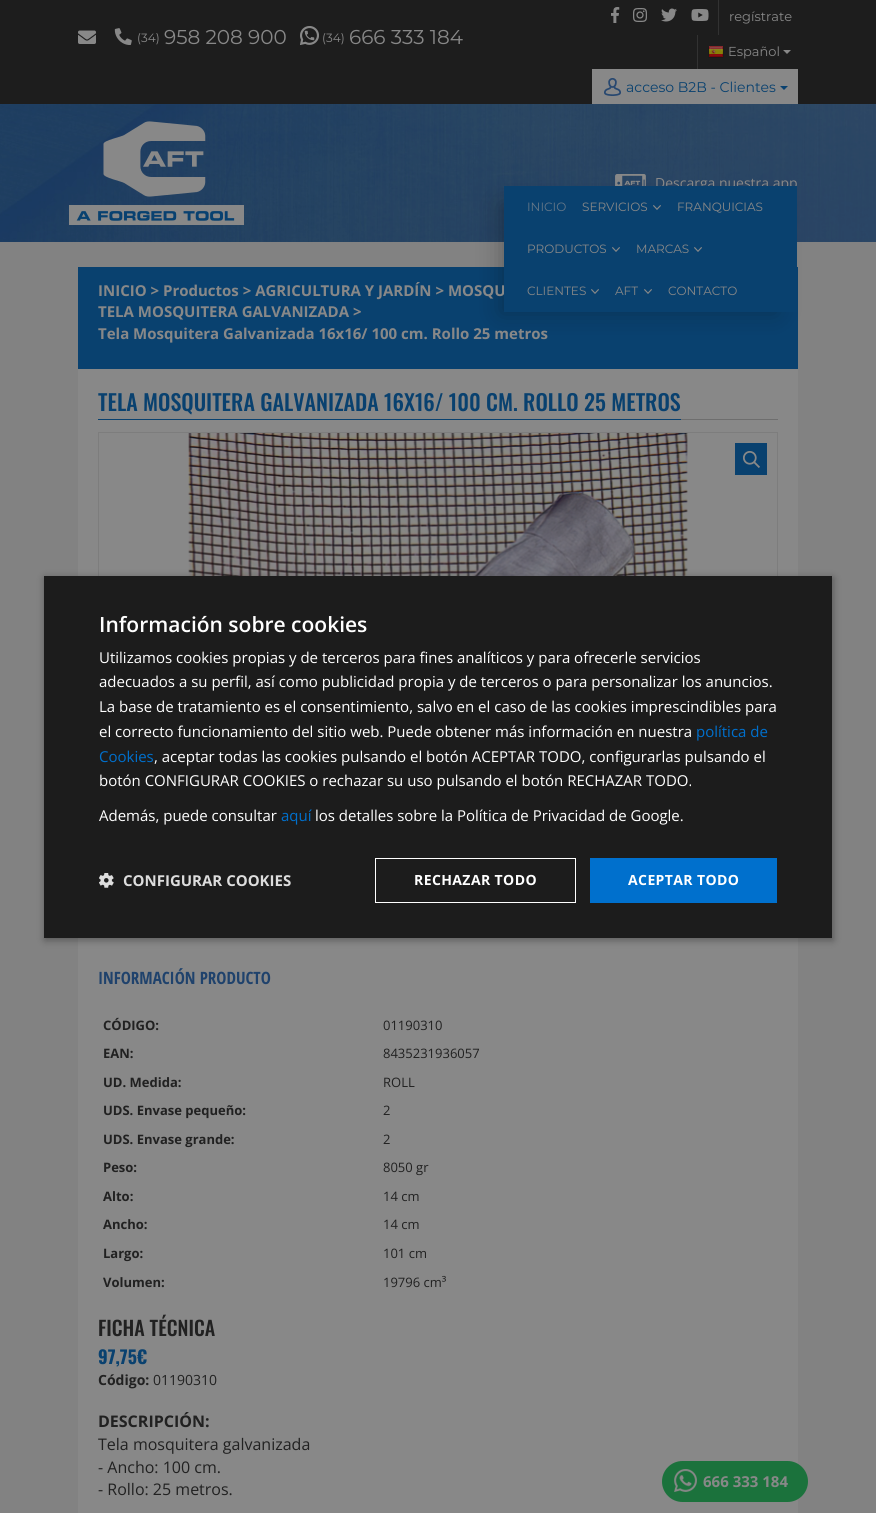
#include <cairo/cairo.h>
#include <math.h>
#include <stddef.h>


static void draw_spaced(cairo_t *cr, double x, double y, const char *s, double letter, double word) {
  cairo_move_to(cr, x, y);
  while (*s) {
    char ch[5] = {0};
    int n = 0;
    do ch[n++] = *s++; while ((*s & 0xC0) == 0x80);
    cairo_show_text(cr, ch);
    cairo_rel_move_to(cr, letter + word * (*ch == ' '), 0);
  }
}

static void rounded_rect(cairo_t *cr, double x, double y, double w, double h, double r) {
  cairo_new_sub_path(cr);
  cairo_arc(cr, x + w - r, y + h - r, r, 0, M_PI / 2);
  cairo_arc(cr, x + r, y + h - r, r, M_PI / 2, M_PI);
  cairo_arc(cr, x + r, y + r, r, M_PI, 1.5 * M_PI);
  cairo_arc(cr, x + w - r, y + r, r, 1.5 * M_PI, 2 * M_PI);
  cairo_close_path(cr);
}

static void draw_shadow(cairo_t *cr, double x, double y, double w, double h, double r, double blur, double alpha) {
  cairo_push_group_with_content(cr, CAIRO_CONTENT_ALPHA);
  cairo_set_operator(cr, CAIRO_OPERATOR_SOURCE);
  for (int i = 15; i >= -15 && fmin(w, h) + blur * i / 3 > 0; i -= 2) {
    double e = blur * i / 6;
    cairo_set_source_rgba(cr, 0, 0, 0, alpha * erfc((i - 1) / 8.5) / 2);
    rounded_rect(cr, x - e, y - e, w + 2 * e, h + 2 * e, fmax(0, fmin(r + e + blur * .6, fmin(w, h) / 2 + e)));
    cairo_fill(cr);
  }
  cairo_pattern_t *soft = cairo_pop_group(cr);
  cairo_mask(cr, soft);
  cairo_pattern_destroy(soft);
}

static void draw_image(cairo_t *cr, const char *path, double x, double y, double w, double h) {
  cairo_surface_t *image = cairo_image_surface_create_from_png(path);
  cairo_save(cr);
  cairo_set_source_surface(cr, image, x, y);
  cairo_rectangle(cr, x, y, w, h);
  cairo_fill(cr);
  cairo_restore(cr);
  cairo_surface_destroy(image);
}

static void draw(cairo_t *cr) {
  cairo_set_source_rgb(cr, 130 / 255.0, 130 / 255.0, 130 / 255.0);
  cairo_paint(cr);
  cairo_set_source_rgb(cr, 29 / 255.0, 29 / 255.0, 29 / 255.0);
  cairo_rectangle(cr, 0, 0, 876, 104);
  cairo_fill(cr);
  draw_image(cr, "images/1.png", 78, 30, 18, 14);
  draw_image(cr, "images/2.png", 114, 28, 18, 17);
  draw_image(cr, "images/3.png", 300, 26, 19, 19);
  draw_image(cr, "images/4.png", 611, 7, 9, 16);
  draw_image(cr, "images/5.png", 633, 8, 14, 14);
  draw_image(cr, "images/6.png", 661, 8, 16, 14);
  draw_image(cr, "images/7.png", 691, 9, 18, 12);
  cairo_set_source_rgb(cr, 50 / 255.0, 50 / 255.0, 50 / 255.0);
  cairo_rectangle(cr, 718, 0, 1, 35);
  cairo_fill(cr);
  cairo_rectangle(cr, 697, 35, 1, 34);
  cairo_fill(cr);
  draw_image(cr, "images/8.png", 708, 46, 16, 12);
  cairo_set_source_rgb(cr, 136 / 255.0, 136 / 255.0, 136 / 255.0);
  cairo_new_path(cr);
  cairo_move_to(cr, 783, 50);
  cairo_line_to(cr, 791, 50);
  cairo_line_to(cr, 787, 54);
  cairo_close_path(cr);
  cairo_fill(cr);
  cairo_rectangle(cr, 592, 69, 206, 35);
  cairo_fill(cr);
  draw_image(cr, "images/9.png", 604, 78, 17, 18);
  cairo_set_source_rgb(cr, 9 / 255.0, 65 / 255.0, 111 / 255.0);
  cairo_new_path(cr);
  cairo_move_to(cr, 780, 86);
  cairo_line_to(cr, 788, 86);
  cairo_line_to(cr, 784, 90);
  cairo_close_path(cr);
  cairo_fill(cr);
  draw_image(cr, "images/10.png", 0, 104, 876, 138);
  draw_image(cr, "images/11.png", 69, 121, 175, 104);
  draw_image(cr, "images/12.png", 615, 174, 31, 12);
  cairo_rectangle(cr, 78, 267, 720, 102);
  cairo_fill(cr);
  cairo_set_source_rgb(cr, 9 / 255.0, 9 / 255.0, 9 / 255.0);
  draw_shadow(cr, 500, 204, 277, 110, 0, 11.5, 0.26);
  cairo_set_source_rgb(cr, 136 / 255.0, 136 / 255.0, 136 / 255.0);
  cairo_rectangle(cr, 78, 369, 720, 1144);
  cairo_fill(cr);
  cairo_set_source_rgb(cr, 110 / 255.0, 110 / 255.0, 110 / 255.0);
  cairo_rectangle(cr, 681, 419, 97, 1);
  cairo_fill(cr);
  cairo_set_source_rgb(cr, 9 / 255.0, 65 / 255.0, 111 / 255.0);
  cairo_rectangle(cr, 98, 419, 583, 1);
  cairo_fill(cr);
  cairo_rectangle(cr, 98.5, 432.5, 679, 499);
  cairo_set_source_rgb(cr, 125 / 255.0, 125 / 255.0, 125 / 255.0);
  cairo_set_line_width(cr, 1);
  cairo_stroke(cr);
  draw_image(cr, "images/14.png", 188, 433, 500, 143);
  cairo_set_source_rgb(cr, 9 / 255.0, 65 / 255.0, 111 / 255.0);
  cairo_rectangle(cr, 735, 443, 32, 32);
  cairo_fill(cr);
  draw_image(cr, "images/15.png", 743, 451, 17, 17);
  cairo_set_source_rgb(cr, 0, 0, 0);
  draw_shadow(cr, 45, 578, 788, 362, 0, 4, 0.35);
  cairo_set_source_rgb(cr, 28 / 255.0, 28 / 255.0, 28 / 255.0);
  cairo_rectangle(cr, 44, 576, 788, 362);
  cairo_fill(cr);
  draw_image(cr, "images/16.png", 99, 873, 15, 15);
  cairo_rectangle(cr, 375.5, 858.5, 200, 44);
  cairo_set_source_rgb(cr, 1, 1, 1);
  cairo_stroke(cr);
  cairo_set_source_rgb(cr, 0, 112 / 255.0, 205 / 255.0);
  cairo_rectangle(cr, 590, 858, 187, 45);
  cairo_fill(cr);
  cairo_set_source_rgb(cr, 27 / 255.0, 114 / 255.0, 60 / 255.0);
  rounded_rect(cr, 662, 1461, 146, 41, 20.5);
  cairo_fill(cr);
  draw_image(cr, "images/17.png", 674, 1469, 23, 23);
  cairo_select_font_face(cr, "Montserrat", CAIRO_FONT_SLANT_NORMAL, CAIRO_FONT_WEIGHT_NORMAL);
  cairo_set_font_size(cr, 12);
  cairo_set_source_rgb(cr, 136 / 255.0, 136 / 255.0, 136 / 255.0);
  cairo_move_to(cr, 137, 42);
  cairo_show_text(cr, "(34)");
  cairo_set_font_size(cr, 20);
  cairo_move_to(cr, 164, 44);
  cairo_show_text(cr, "958 208 900");
  cairo_set_font_size(cr, 12);
  cairo_move_to(cr, 322, 42);
  cairo_show_text(cr, "(34)");
  cairo_set_font_size(cr, 20);
  cairo_move_to(cr, 349, 44);
  cairo_show_text(cr, "666 333 184");
  cairo_set_font_size(cr, 13);
  cairo_move_to(cr, 729, 21);
  cairo_show_text(cr, "regístrate");
  cairo_move_to(cr, 728, 56);
  cairo_show_text(cr, "Español");
  cairo_set_font_size(cr, 14);
  cairo_set_source_rgb(cr, 9 / 255.0, 65 / 255.0, 111 / 255.0);
  cairo_move_to(cr, 626, 92);
  cairo_show_text(cr, "acceso B2B - Clientes");
  cairo_select_font_face(cr, "Open Sans", CAIRO_FONT_SLANT_NORMAL, CAIRO_FONT_WEIGHT_NORMAL);
  cairo_set_source_rgb(cr, 136 / 255.0, 136 / 255.0, 136 / 255.0);
  cairo_move_to(cr, 655, 188);
  cairo_show_text(cr, "Descarga nuestra app");
  cairo_select_font_face(cr, "Open Sans", CAIRO_FONT_SLANT_NORMAL, CAIRO_FONT_WEIGHT_BOLD);
  cairo_set_font_size(cr, 15);
  cairo_move_to(cr, 98, 296);
  cairo_show_text(cr, "INICIO > Productos > AGRICULTURA Y JARDÍN > MOSQU");
  cairo_set_source_rgb(cr, 9 / 255.0, 65 / 255.0, 111 / 255.0);
  cairo_rectangle(cr, 504, 186, 293, 126);
  cairo_fill(cr);
  cairo_select_font_face(cr, "Montserrat", CAIRO_FONT_SLANT_NORMAL, CAIRO_FONT_WEIGHT_NORMAL);
  cairo_set_font_size(cr, 12);
  cairo_set_source_rgb(cr, 136 / 255.0, 136 / 255.0, 136 / 255.0);
  cairo_move_to(cr, 668, 295);
  cairo_show_text(cr, "CONTACTO");
  draw_image(cr, "images/13.png", 644, 289, 8, 5);
  cairo_move_to(cr, 615, 295);
  cairo_show_text(cr, "AFT");
  draw_image(cr, "images/13.png", 591, 289, 8, 5);
  cairo_move_to(cr, 527, 295);
  cairo_show_text(cr, "CLIENTES");
  draw_image(cr, "images/13.png", 694, 247, 8, 5);
  cairo_move_to(cr, 636, 253);
  cairo_show_text(cr, "MARCAS");
  draw_image(cr, "images/13.png", 612, 247, 8, 5);
  cairo_move_to(cr, 527, 253);
  cairo_show_text(cr, "PRODUCTOS");
  cairo_move_to(cr, 677, 211);
  cairo_show_text(cr, "FRANQUICIAS");
  draw_image(cr, "images/13.png", 653, 205, 8, 5);
  cairo_move_to(cr, 582, 211);
  cairo_show_text(cr, "SERVICIOS");
  cairo_set_source_rgb(cr, 99 / 255.0, 118 / 255.0, 136 / 255.0);
  cairo_move_to(cr, 527, 211);
  cairo_show_text(cr, "INICIO");
  cairo_select_font_face(cr, "Open Sans", CAIRO_FONT_SLANT_NORMAL, CAIRO_FONT_WEIGHT_BOLD);
  cairo_set_font_size(cr, 15);
  cairo_set_source_rgb(cr, 136 / 255.0, 136 / 255.0, 136 / 255.0);
  cairo_move_to(cr, 98, 317);
  cairo_show_text(cr, "TELA MOSQUITERA GALVANIZADA >");
  cairo_move_to(cr, 98, 339);
  cairo_show_text(cr, "Tela Mosquitera Galvanizada 16x16/ 100 cm. Rollo 25 metros");
  cairo_select_font_face(cr, "Oswald Medium", CAIRO_FONT_SLANT_NORMAL, CAIRO_FONT_WEIGHT_NORMAL);
  cairo_set_font_size(cr, 22);
  cairo_set_source_rgb(cr, 9 / 255.0, 65 / 255.0, 111 / 255.0);
  cairo_move_to(cr, 98, 411);
  cairo_show_text(cr, "TELA MOSQUITERA GALVANIZADA 16X16/ 100 CM. ROLLO 25 METROS");
  cairo_select_font_face(cr, "Open Sans Condensed", CAIRO_FONT_SLANT_NORMAL, CAIRO_FONT_WEIGHT_BOLD);
  cairo_set_font_size(cr, 17);
  cairo_set_source_rgb(cr, 31 / 255.0, 66 / 255.0, 108 / 255.0);
  cairo_move_to(cr, 98, 984);
  cairo_show_text(cr, "INFORMACIÓN PRODUCTO");
  cairo_select_font_face(cr, "Open Sans", CAIRO_FONT_SLANT_NORMAL, CAIRO_FONT_WEIGHT_BOLD);
  cairo_set_font_size(cr, 13);
  cairo_set_source_rgb(cr, 33 / 255.0, 33 / 255.0, 33 / 255.0);
  cairo_move_to(cr, 103, 1030);
  cairo_show_text(cr, "CÓDIGO:");
  cairo_select_font_face(cr, "Open Sans", CAIRO_FONT_SLANT_NORMAL, CAIRO_FONT_WEIGHT_NORMAL);
  cairo_move_to(cr, 383, 1030);
  cairo_show_text(cr, "01190310");
  cairo_select_font_face(cr, "Open Sans", CAIRO_FONT_SLANT_NORMAL, CAIRO_FONT_WEIGHT_BOLD);
  cairo_move_to(cr, 103, 1058);
  cairo_show_text(cr, "EAN:");
  cairo_select_font_face(cr, "Open Sans", CAIRO_FONT_SLANT_NORMAL, CAIRO_FONT_WEIGHT_NORMAL);
  cairo_move_to(cr, 383, 1058);
  cairo_show_text(cr, "8435231936057");
  cairo_select_font_face(cr, "Open Sans", CAIRO_FONT_SLANT_NORMAL, CAIRO_FONT_WEIGHT_BOLD);
  cairo_move_to(cr, 103, 1087);
  cairo_show_text(cr, "UD. Medida:");
  cairo_select_font_face(cr, "Open Sans", CAIRO_FONT_SLANT_NORMAL, CAIRO_FONT_WEIGHT_NORMAL);
  cairo_move_to(cr, 383, 1087);
  cairo_show_text(cr, "ROLL");
  cairo_select_font_face(cr, "Open Sans", CAIRO_FONT_SLANT_NORMAL, CAIRO_FONT_WEIGHT_BOLD);
  cairo_move_to(cr, 103, 1115);
  cairo_show_text(cr, "UDS. Envase pequeño:");
  cairo_select_font_face(cr, "Open Sans", CAIRO_FONT_SLANT_NORMAL, CAIRO_FONT_WEIGHT_NORMAL);
  cairo_move_to(cr, 383, 1115);
  cairo_show_text(cr, "2");
  cairo_select_font_face(cr, "Open Sans", CAIRO_FONT_SLANT_NORMAL, CAIRO_FONT_WEIGHT_BOLD);
  cairo_move_to(cr, 103, 1144);
  cairo_show_text(cr, "UDS. Envase grande:");
  cairo_select_font_face(cr, "Open Sans", CAIRO_FONT_SLANT_NORMAL, CAIRO_FONT_WEIGHT_NORMAL);
  cairo_move_to(cr, 383, 1144);
  cairo_show_text(cr, "2");
  cairo_select_font_face(cr, "Open Sans", CAIRO_FONT_SLANT_NORMAL, CAIRO_FONT_WEIGHT_BOLD);
  cairo_move_to(cr, 103, 1172);
  cairo_show_text(cr, "Peso:");
  cairo_select_font_face(cr, "Open Sans", CAIRO_FONT_SLANT_NORMAL, CAIRO_FONT_WEIGHT_NORMAL);
  cairo_move_to(cr, 383, 1172);
  cairo_show_text(cr, "8050 gr");
  cairo_select_font_face(cr, "Open Sans", CAIRO_FONT_SLANT_NORMAL, CAIRO_FONT_WEIGHT_BOLD);
  cairo_move_to(cr, 103, 1201);
  cairo_show_text(cr, "Alto:");
  cairo_select_font_face(cr, "Open Sans", CAIRO_FONT_SLANT_NORMAL, CAIRO_FONT_WEIGHT_NORMAL);
  cairo_move_to(cr, 383, 1201);
  cairo_show_text(cr, "14 cm");
  cairo_select_font_face(cr, "Open Sans", CAIRO_FONT_SLANT_NORMAL, CAIRO_FONT_WEIGHT_BOLD);
  cairo_move_to(cr, 103, 1229);
  cairo_show_text(cr, "Ancho:");
  cairo_select_font_face(cr, "Open Sans", CAIRO_FONT_SLANT_NORMAL, CAIRO_FONT_WEIGHT_NORMAL);
  cairo_move_to(cr, 383, 1229);
  cairo_show_text(cr, "14 cm");
  cairo_select_font_face(cr, "Open Sans", CAIRO_FONT_SLANT_NORMAL, CAIRO_FONT_WEIGHT_BOLD);
  cairo_move_to(cr, 103, 1258);
  cairo_show_text(cr, "Largo:");
  cairo_select_font_face(cr, "Open Sans", CAIRO_FONT_SLANT_NORMAL, CAIRO_FONT_WEIGHT_NORMAL);
  cairo_move_to(cr, 383, 1258);
  cairo_show_text(cr, "101 cm");
  cairo_select_font_face(cr, "Open Sans", CAIRO_FONT_SLANT_NORMAL, CAIRO_FONT_WEIGHT_BOLD);
  cairo_move_to(cr, 103, 1287);
  cairo_show_text(cr, "Volumen:");
  cairo_select_font_face(cr, "Open Sans", CAIRO_FONT_SLANT_NORMAL, CAIRO_FONT_WEIGHT_NORMAL);
  cairo_move_to(cr, 383, 1287);
  cairo_show_text(cr, "19796 cm³");
  cairo_select_font_face(cr, "Oswald Medium", CAIRO_FONT_SLANT_NORMAL, CAIRO_FONT_WEIGHT_NORMAL);
  cairo_set_font_size(cr, 20);
  cairo_move_to(cr, 98, 1336);
  cairo_show_text(cr, "FICHA TÉCNICA");
  cairo_select_font_face(cr, "Oswald", CAIRO_FONT_SLANT_NORMAL, CAIRO_FONT_WEIGHT_BOLD);
  cairo_set_font_size(cr, 18);
  cairo_set_source_rgb(cr, 9 / 255.0, 65 / 255.0, 111 / 255.0);
  cairo_move_to(cr, 98, 1364);
  cairo_show_text(cr, "97,75€");
  cairo_select_font_face(cr, "Open Sans", CAIRO_FONT_SLANT_NORMAL, CAIRO_FONT_WEIGHT_BOLD);
  cairo_set_font_size(cr, 14);
  cairo_set_source_rgb(cr, 33 / 255.0, 33 / 255.0, 33 / 255.0);
  cairo_move_to(cr, 98, 1385);
  cairo_show_text(cr, "Código:");
  cairo_select_font_face(cr, "Open Sans", CAIRO_FONT_SLANT_NORMAL, CAIRO_FONT_WEIGHT_NORMAL);
  cairo_move_to(cr, 153, 1385);
  cairo_show_text(cr, "01190310");
  cairo_select_font_face(cr, "Open Sans", CAIRO_FONT_SLANT_NORMAL, CAIRO_FONT_WEIGHT_BOLD);
  cairo_set_font_size(cr, 16);
  cairo_move_to(cr, 98, 1427);
  cairo_show_text(cr, "DESCRIPCIÓN:");
  cairo_select_font_face(cr, "Open Sans", CAIRO_FONT_SLANT_NORMAL, CAIRO_FONT_WEIGHT_NORMAL);
  cairo_move_to(cr, 98, 1450);
  cairo_show_text(cr, "Tela mosquitera galvanizada");
  cairo_move_to(cr, 98, 1473);
  cairo_show_text(cr, "- Ancho: 100 cm.");
  cairo_move_to(cr, 98, 1495);
  cairo_show_text(cr, "- Rollo: 25 metros.");
  cairo_select_font_face(cr, "Open Sans SemiBold", CAIRO_FONT_SLANT_NORMAL, CAIRO_FONT_WEIGHT_NORMAL);
  cairo_set_font_size(cr, 21);
  cairo_set_source_rgb(cr, 1, 1, 1);
  cairo_move_to(cr, 99, 632);
  cairo_show_text(cr, "Información sobre cookies");
  cairo_select_font_face(cr, "Open Sans", CAIRO_FONT_SLANT_NORMAL, CAIRO_FONT_WEIGHT_NORMAL);
  cairo_set_font_size(cr, 15);
  cairo_move_to(cr, 99, 663);
  cairo_show_text(cr, "Utilizamos cookies propias y de terceros para fines analíticos y para ofrecerle servicios");
  cairo_move_to(cr, 99, 687);
  cairo_show_text(cr, "adecuados a su perfil, así como publicidad propia y de terceros o para personalizar los anuncios.");
  cairo_move_to(cr, 99, 712);
  cairo_show_text(cr, "La base de tratamiento es el consentimiento, salvo en el caso de las cookies imprescindibles para");
  cairo_move_to(cr, 99, 737);
  cairo_show_text(cr, "el correcto funcionamiento del sitio web. Puede obtener más información en nuestra");
  cairo_set_source_rgb(cr, 0, 112 / 255.0, 205 / 255.0);
  cairo_move_to(cr, 696, 737);
  cairo_show_text(cr, "política de");
  cairo_move_to(cr, 99, 762);
  cairo_show_text(cr, "Cookies");
  cairo_set_source_rgb(cr, 1, 1, 1);
  cairo_move_to(cr, 154, 762);
  cairo_show_text(cr, ", aceptar todas las cookies pulsando el botón ACEPTAR TODO, configurarlas pulsando el");
  cairo_move_to(cr, 99, 786);
  cairo_show_text(cr, "botón CONFIGURAR COOKIES o rechazar su uso pulsando el botón RECHAZAR TODO.");
  cairo_move_to(cr, 99, 821);
  cairo_show_text(cr, "Además, puede consultar");
  cairo_set_source_rgb(cr, 0, 112 / 255.0, 205 / 255.0);
  cairo_move_to(cr, 281, 821);
  cairo_show_text(cr, "aquí");
  cairo_set_source_rgb(cr, 1, 1, 1);
  cairo_move_to(cr, 315, 821);
  cairo_show_text(cr, "los detalles sobre la Política de Privacidad de Google.");
  cairo_select_font_face(cr, "Open Sans", CAIRO_FONT_SLANT_NORMAL, CAIRO_FONT_WEIGHT_BOLD);
  cairo_set_source_rgb(cr, 221 / 255.0, 221 / 255.0, 221 / 255.0);
  cairo_move_to(cr, 123, 886);
  cairo_show_text(cr, "CONFIGURAR COOKIES");
  cairo_set_font_size(cr, 14);
  cairo_set_source_rgb(cr, 1, 1, 1);
  draw_spaced(cr, 414, 885, "RECHAZAR TODO", 0.4, 0);
  draw_spaced(cr, 628, 885, "ACEPTAR TODO", 0.4, 0);
  cairo_set_font_size(cr, 15);
  cairo_set_source_rgb(cr, 136 / 255.0, 136 / 255.0, 136 / 255.0);
  cairo_move_to(cr, 703, 1487);
  cairo_show_text(cr, "666 333 184");
}

int main(void) {
  cairo_surface_t *surface = cairo_image_surface_create(CAIRO_FORMAT_RGB24, 876, 1513);
  cairo_t *cr = cairo_create(surface);
  cairo_font_options_t *options = cairo_font_options_create();
  cairo_font_options_set_hint_metrics(options, CAIRO_HINT_METRICS_OFF);
  cairo_font_options_set_hint_style(options, CAIRO_HINT_STYLE_NONE);
  cairo_set_font_options(cr, options);
  cairo_set_miter_limit(cr, 4);
  draw(cr);
  cairo_surface_write_to_png(surface, "out.png");
  cairo_font_options_destroy(options);
  cairo_destroy(cr);
  cairo_surface_destroy(surface);
  return 0;
}
